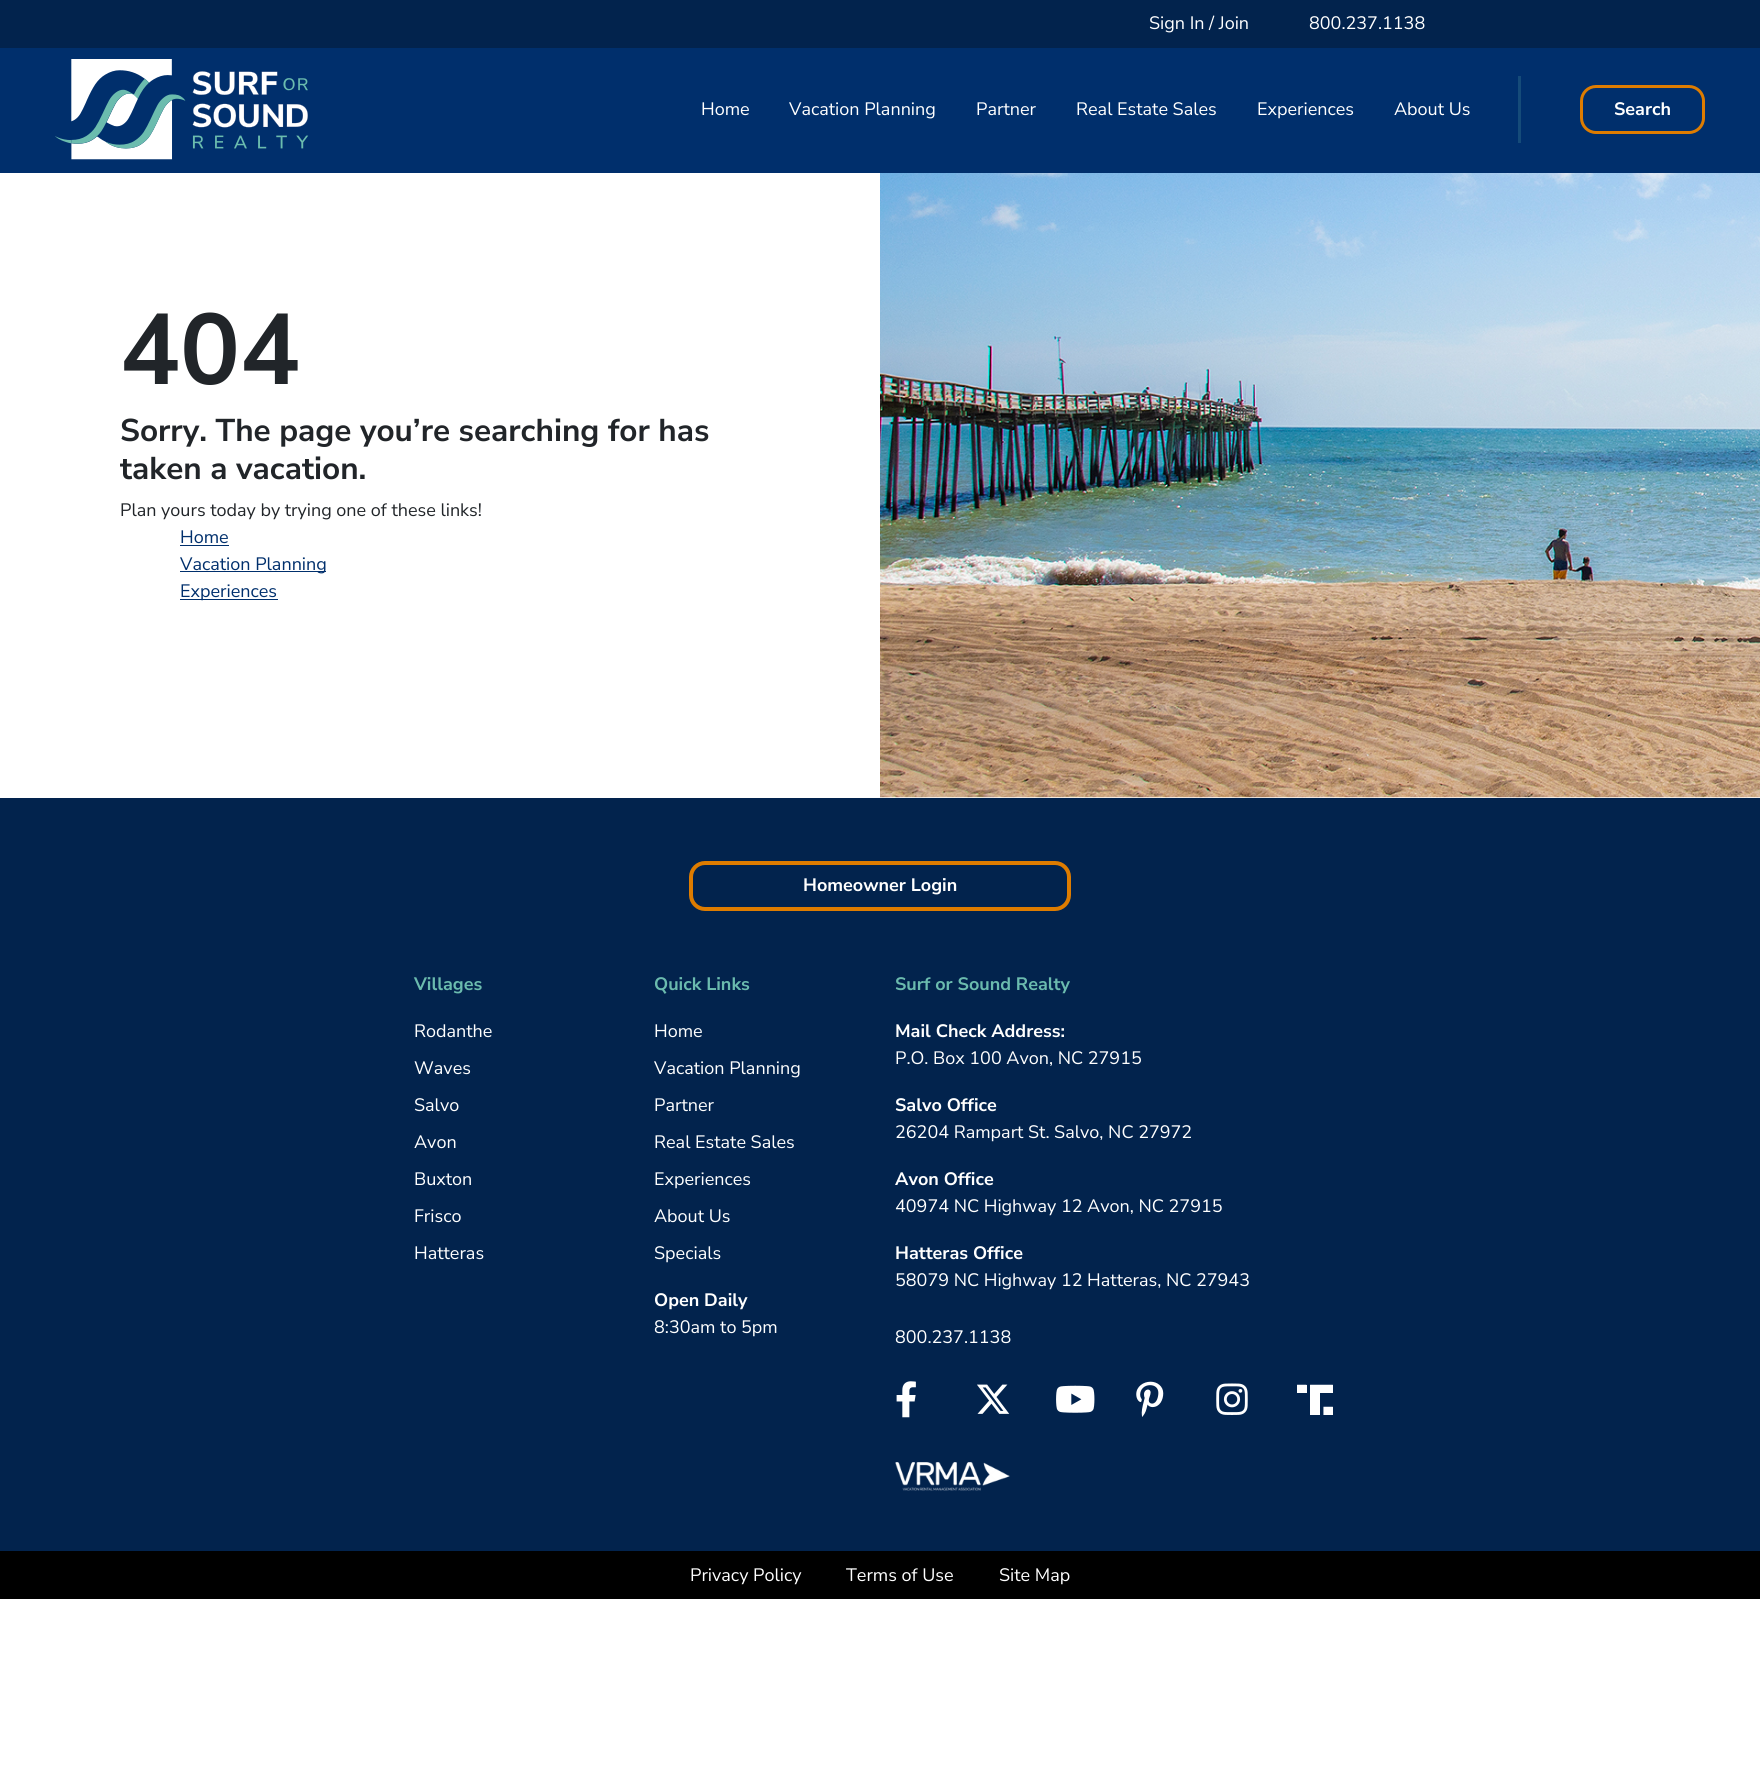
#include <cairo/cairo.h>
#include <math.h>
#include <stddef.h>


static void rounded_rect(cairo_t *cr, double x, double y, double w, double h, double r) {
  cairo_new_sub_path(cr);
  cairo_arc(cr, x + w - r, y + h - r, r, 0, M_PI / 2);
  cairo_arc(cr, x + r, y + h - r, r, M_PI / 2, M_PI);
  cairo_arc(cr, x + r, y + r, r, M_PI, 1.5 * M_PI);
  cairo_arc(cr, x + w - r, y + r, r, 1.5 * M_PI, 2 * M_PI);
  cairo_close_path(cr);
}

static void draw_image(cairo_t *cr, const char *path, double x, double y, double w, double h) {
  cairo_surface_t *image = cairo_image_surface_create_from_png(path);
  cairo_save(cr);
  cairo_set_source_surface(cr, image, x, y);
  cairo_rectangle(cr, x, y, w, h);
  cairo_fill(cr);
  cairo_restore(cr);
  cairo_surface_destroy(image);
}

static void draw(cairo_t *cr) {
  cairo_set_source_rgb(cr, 1, 1, 1);
  cairo_paint(cr);
  cairo_set_source_rgb(cr, 0, 47 / 255.0, 108 / 255.0);
  cairo_rectangle(cr, 0, 48, 1760, 125);
  cairo_fill(cr);
  cairo_set_source_rgb(cr, 2 / 255.0, 35 / 255.0, 77 / 255.0);
  cairo_rectangle(cr, 0, 0, 1760, 48);
  cairo_fill(cr);
  draw_image(cr, "images/1.png", 55, 59, 254, 101);
  cairo_set_source_rgb(cr, 21 / 255.0, 75 / 255.0, 121 / 255.0);
  cairo_rectangle(cr, 1518, 76, 3, 67);
  cairo_fill(cr);
  rounded_rect(cr, 1581.5, 86.5, 122, 46, 14.5);
  cairo_set_source_rgb(cr, 222 / 255.0, 124 / 255.0, 0);
  cairo_set_line_width(cr, 3);
  cairo_stroke(cr);
  cairo_set_source_rgb(cr, 0, 47 / 255.0, 108 / 255.0);
  cairo_rectangle(cr, 180, 545, 49, 1);
  cairo_fill(cr);
  cairo_rectangle(cr, 180, 571, 146, 1);
  cairo_fill(cr);
  cairo_rectangle(cr, 180, 599, 98, 1);
  cairo_fill(cr);
  draw_image(cr, "images/2.png", 880, 173, 880, 625);
  cairo_set_source_rgb(cr, 2 / 255.0, 35 / 255.0, 77 / 255.0);
  cairo_rectangle(cr, 0, 798, 1760, 753);
  cairo_fill(cr);
  rounded_rect(cr, 691, 863, 378, 46, 14);
  cairo_set_source_rgb(cr, 222 / 255.0, 124 / 255.0, 0);
  cairo_set_line_width(cr, 4);
  cairo_stroke(cr);
  draw_image(cr, "images/3.png", 896, 1381, 20, 37);
  draw_image(cr, "images/4.png", 977, 1384, 33, 30);
  draw_image(cr, "images/5.png", 1056, 1385, 39, 28);
  draw_image(cr, "images/6.png", 1136, 1381, 28, 36);
  draw_image(cr, "images/7.png", 1216, 1383, 32, 32);
  draw_image(cr, "images/8.png", 1297, 1384, 36, 31);
  cairo_set_source_rgb(cr, 1, 1, 1);
  cairo_rectangle(cr, 1297, 1385, 10, 8);
  cairo_fill(cr);
  cairo_new_path(cr);
  cairo_move_to(cr, 1333, 1393);
  cairo_line_to(cr, 1333, 1385);
  cairo_line_to(cr, 1310, 1385);
  cairo_line_to(cr, 1310, 1415);
  cairo_line_to(cr, 1320, 1415);
  cairo_line_to(cr, 1320, 1393);
  cairo_close_path(cr);
  cairo_fill(cr);
  cairo_rectangle(cr, 1324, 1407, 9, 8);
  cairo_fill(cr);
  draw_image(cr, "images/9.png", 895, 1462, 115, 29);
  cairo_set_source_rgb(cr, 0, 0, 0);
  cairo_rectangle(cr, 0, 1551, 1760, 48);
  cairo_fill(cr);
  cairo_select_font_face(cr, "Nunito Sans", CAIRO_FONT_SLANT_NORMAL, CAIRO_FONT_WEIGHT_NORMAL);
  cairo_set_font_size(cr, 18);
  cairo_set_source_rgb(cr, 1, 1, 1);
  cairo_move_to(cr, 1149, 29);
  cairo_show_text(cr, "Sign In / Join");
  cairo_move_to(cr, 1309, 29);
  cairo_show_text(cr, "800.237.1138");
  cairo_move_to(cr, 701, 115);
  cairo_show_text(cr, "Home");
  cairo_move_to(cr, 789, 115);
  cairo_show_text(cr, "Vacation Planning");
  cairo_move_to(cr, 976, 115);
  cairo_show_text(cr, "Partner");
  cairo_move_to(cr, 1076, 115);
  cairo_show_text(cr, "Real Estate Sales");
  cairo_move_to(cr, 1257, 115);
  cairo_show_text(cr, "Experiences");
  cairo_move_to(cr, 1394, 115);
  cairo_show_text(cr, "About Us");
  cairo_select_font_face(cr, "Nunito Sans", CAIRO_FONT_SLANT_NORMAL, CAIRO_FONT_WEIGHT_BOLD);
  cairo_move_to(cr, 1614, 115);
  cairo_show_text(cr, "Search");
  cairo_set_font_size(cr, 100);
  cairo_set_source_rgb(cr, 33 / 255.0, 37 / 255.0, 41 / 255.0);
  cairo_move_to(cr, 120, 384);
  cairo_show_text(cr, "404");
  cairo_set_font_size(cr, 31.5);
  cairo_move_to(cr, 120, 441);
  cairo_show_text(cr, "Sorry. The page you’re searching for has");
  cairo_move_to(cr, 120, 479);
  cairo_show_text(cr, "taken a vacation.");
  cairo_select_font_face(cr, "Nunito Sans", CAIRO_FONT_SLANT_NORMAL, CAIRO_FONT_WEIGHT_NORMAL);
  cairo_set_font_size(cr, 18);
  cairo_move_to(cr, 120, 516);
  cairo_show_text(cr, "Plan yours today by trying one of these links!");
  cairo_set_source_rgb(cr, 0, 47 / 255.0, 108 / 255.0);
  cairo_move_to(cr, 180, 543);
  cairo_show_text(cr, "Home");
  cairo_move_to(cr, 180, 570);
  cairo_show_text(cr, "Vacation Planning");
  cairo_move_to(cr, 180, 597);
  cairo_show_text(cr, "Experiences");
  cairo_select_font_face(cr, "Nunito Sans", CAIRO_FONT_SLANT_NORMAL, CAIRO_FONT_WEIGHT_BOLD);
  cairo_set_source_rgb(cr, 1, 1, 1);
  cairo_move_to(cr, 803, 891);
  cairo_show_text(cr, "Homeowner Login");
  cairo_set_source_rgb(cr, 107 / 255.0, 187 / 255.0, 174 / 255.0);
  cairo_move_to(cr, 414, 990);
  cairo_show_text(cr, "Villages");
  cairo_select_font_face(cr, "Nunito Sans", CAIRO_FONT_SLANT_NORMAL, CAIRO_FONT_WEIGHT_NORMAL);
  cairo_set_source_rgb(cr, 1, 1, 1);
  cairo_move_to(cr, 414, 1037);
  cairo_show_text(cr, "Rodanthe");
  cairo_move_to(cr, 414, 1074);
  cairo_show_text(cr, "Waves");
  cairo_move_to(cr, 414, 1111);
  cairo_show_text(cr, "Salvo");
  cairo_move_to(cr, 414, 1148);
  cairo_show_text(cr, "Avon");
  cairo_move_to(cr, 414, 1185);
  cairo_show_text(cr, "Buxton");
  cairo_move_to(cr, 414, 1222);
  cairo_show_text(cr, "Frisco");
  cairo_move_to(cr, 414, 1259);
  cairo_show_text(cr, "Hatteras");
  cairo_select_font_face(cr, "Nunito Sans", CAIRO_FONT_SLANT_NORMAL, CAIRO_FONT_WEIGHT_BOLD);
  cairo_set_source_rgb(cr, 107 / 255.0, 187 / 255.0, 174 / 255.0);
  cairo_move_to(cr, 654, 990);
  cairo_show_text(cr, "Quick Links");
  cairo_select_font_face(cr, "Nunito Sans", CAIRO_FONT_SLANT_NORMAL, CAIRO_FONT_WEIGHT_NORMAL);
  cairo_set_source_rgb(cr, 1, 1, 1);
  cairo_move_to(cr, 654, 1037);
  cairo_show_text(cr, "Home");
  cairo_move_to(cr, 654, 1074);
  cairo_show_text(cr, "Vacation Planning");
  cairo_move_to(cr, 654, 1111);
  cairo_show_text(cr, "Partner");
  cairo_move_to(cr, 654, 1148);
  cairo_show_text(cr, "Real Estate Sales");
  cairo_move_to(cr, 654, 1185);
  cairo_show_text(cr, "Experiences");
  cairo_move_to(cr, 654, 1222);
  cairo_show_text(cr, "About Us");
  cairo_move_to(cr, 654, 1259);
  cairo_show_text(cr, "Specials");
  cairo_select_font_face(cr, "Nunito Sans", CAIRO_FONT_SLANT_NORMAL, CAIRO_FONT_WEIGHT_BOLD);
  cairo_move_to(cr, 654, 1306);
  cairo_show_text(cr, "Open Daily");
  cairo_select_font_face(cr, "Nunito Sans", CAIRO_FONT_SLANT_NORMAL, CAIRO_FONT_WEIGHT_NORMAL);
  cairo_move_to(cr, 654, 1333);
  cairo_show_text(cr, "8:30am to 5pm");
  cairo_select_font_face(cr, "Nunito Sans", CAIRO_FONT_SLANT_NORMAL, CAIRO_FONT_WEIGHT_BOLD);
  cairo_set_source_rgb(cr, 107 / 255.0, 187 / 255.0, 174 / 255.0);
  cairo_move_to(cr, 895, 990);
  cairo_show_text(cr, "Surf or Sound Realty");
  cairo_set_source_rgb(cr, 1, 1, 1);
  cairo_move_to(cr, 895, 1037);
  cairo_show_text(cr, "Mail Check Address:");
  cairo_select_font_face(cr, "Nunito Sans", CAIRO_FONT_SLANT_NORMAL, CAIRO_FONT_WEIGHT_NORMAL);
  cairo_move_to(cr, 895, 1064);
  cairo_show_text(cr, "P.O. Box 100 Avon, NC 27915");
  cairo_select_font_face(cr, "Nunito Sans", CAIRO_FONT_SLANT_NORMAL, CAIRO_FONT_WEIGHT_BOLD);
  cairo_move_to(cr, 895, 1111);
  cairo_show_text(cr, "Salvo Office");
  cairo_select_font_face(cr, "Nunito Sans", CAIRO_FONT_SLANT_NORMAL, CAIRO_FONT_WEIGHT_NORMAL);
  cairo_move_to(cr, 895, 1138);
  cairo_show_text(cr, "26204 Rampart St. Salvo, NC 27972");
  cairo_select_font_face(cr, "Nunito Sans", CAIRO_FONT_SLANT_NORMAL, CAIRO_FONT_WEIGHT_BOLD);
  cairo_move_to(cr, 895, 1185);
  cairo_show_text(cr, "Avon Office");
  cairo_select_font_face(cr, "Nunito Sans", CAIRO_FONT_SLANT_NORMAL, CAIRO_FONT_WEIGHT_NORMAL);
  cairo_move_to(cr, 895, 1212);
  cairo_show_text(cr, "40974 NC Highway 12 Avon, NC 27915");
  cairo_select_font_face(cr, "Nunito Sans", CAIRO_FONT_SLANT_NORMAL, CAIRO_FONT_WEIGHT_BOLD);
  cairo_move_to(cr, 895, 1259);
  cairo_show_text(cr, "Hatteras Office");
  cairo_select_font_face(cr, "Nunito Sans", CAIRO_FONT_SLANT_NORMAL, CAIRO_FONT_WEIGHT_NORMAL);
  cairo_move_to(cr, 895, 1286);
  cairo_show_text(cr, "58079 NC Highway 12 Hatteras, NC 27943");
  cairo_move_to(cr, 895, 1343);
  cairo_show_text(cr, "800.237.1138");
  cairo_move_to(cr, 690, 1581);
  cairo_show_text(cr, "Privacy Policy");
  cairo_move_to(cr, 846, 1581);
  cairo_show_text(cr, "Terms of Use");
  cairo_move_to(cr, 999, 1581);
  cairo_show_text(cr, "Site Map");
}

int main(void) {
  cairo_surface_t *surface = cairo_image_surface_create(CAIRO_FORMAT_RGB24, 1760, 1791);
  cairo_t *cr = cairo_create(surface);
  cairo_font_options_t *options = cairo_font_options_create();
  cairo_font_options_set_hint_metrics(options, CAIRO_HINT_METRICS_OFF);
  cairo_font_options_set_hint_style(options, CAIRO_HINT_STYLE_NONE);
  cairo_set_font_options(cr, options);
  cairo_set_miter_limit(cr, 4);
  draw(cr);
  cairo_surface_write_to_png(surface, "out.png");
  cairo_font_options_destroy(options);
  cairo_destroy(cr);
  cairo_surface_destroy(surface);
  return 0;
}
